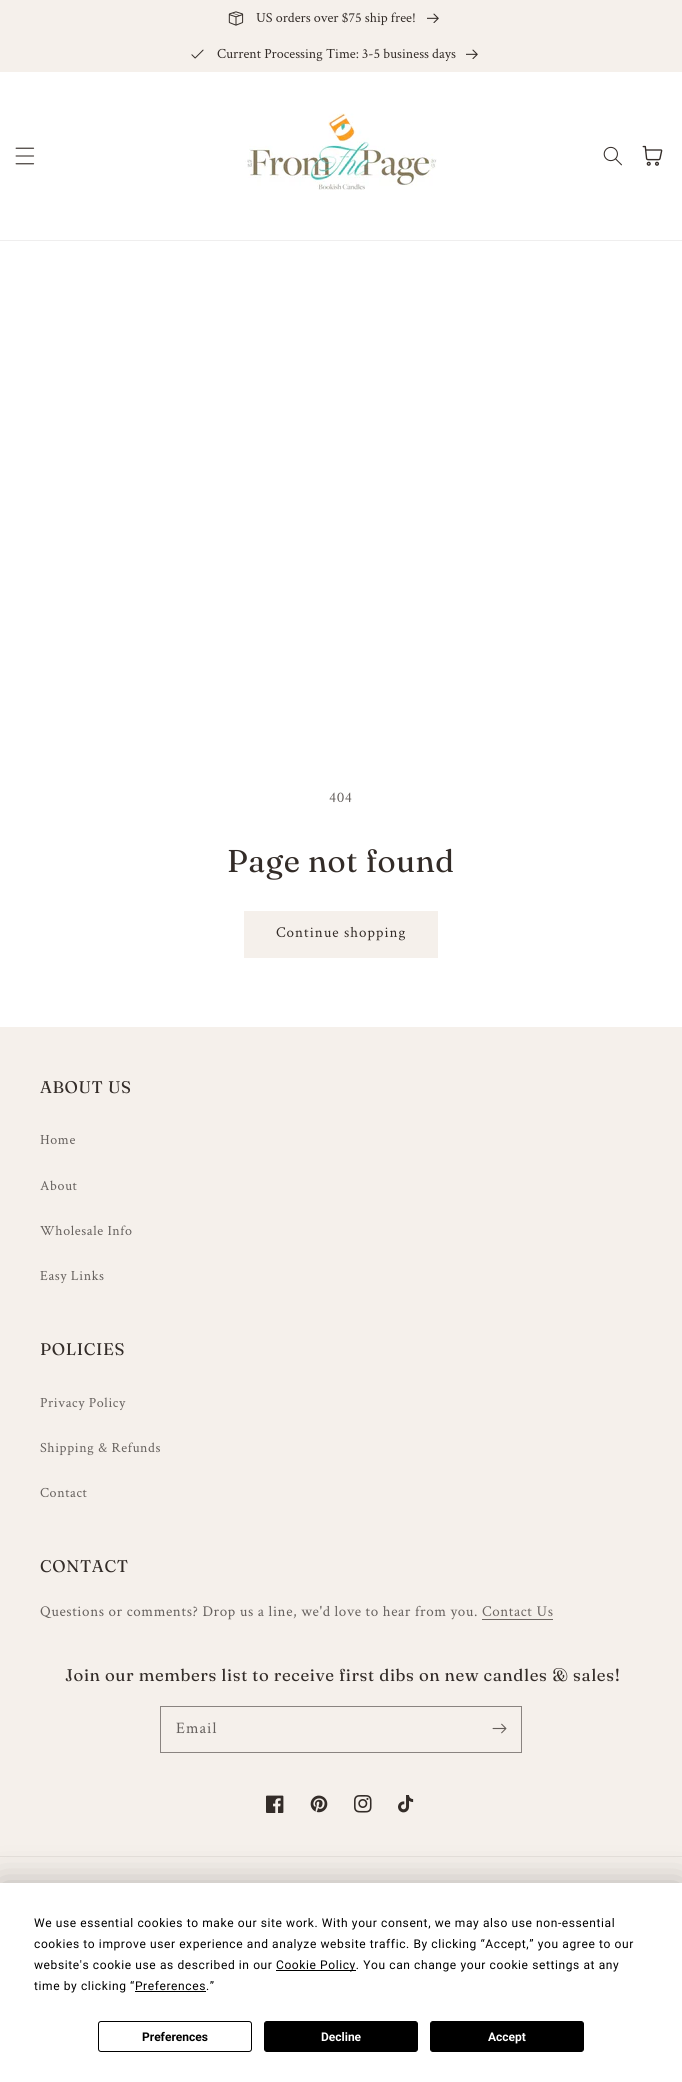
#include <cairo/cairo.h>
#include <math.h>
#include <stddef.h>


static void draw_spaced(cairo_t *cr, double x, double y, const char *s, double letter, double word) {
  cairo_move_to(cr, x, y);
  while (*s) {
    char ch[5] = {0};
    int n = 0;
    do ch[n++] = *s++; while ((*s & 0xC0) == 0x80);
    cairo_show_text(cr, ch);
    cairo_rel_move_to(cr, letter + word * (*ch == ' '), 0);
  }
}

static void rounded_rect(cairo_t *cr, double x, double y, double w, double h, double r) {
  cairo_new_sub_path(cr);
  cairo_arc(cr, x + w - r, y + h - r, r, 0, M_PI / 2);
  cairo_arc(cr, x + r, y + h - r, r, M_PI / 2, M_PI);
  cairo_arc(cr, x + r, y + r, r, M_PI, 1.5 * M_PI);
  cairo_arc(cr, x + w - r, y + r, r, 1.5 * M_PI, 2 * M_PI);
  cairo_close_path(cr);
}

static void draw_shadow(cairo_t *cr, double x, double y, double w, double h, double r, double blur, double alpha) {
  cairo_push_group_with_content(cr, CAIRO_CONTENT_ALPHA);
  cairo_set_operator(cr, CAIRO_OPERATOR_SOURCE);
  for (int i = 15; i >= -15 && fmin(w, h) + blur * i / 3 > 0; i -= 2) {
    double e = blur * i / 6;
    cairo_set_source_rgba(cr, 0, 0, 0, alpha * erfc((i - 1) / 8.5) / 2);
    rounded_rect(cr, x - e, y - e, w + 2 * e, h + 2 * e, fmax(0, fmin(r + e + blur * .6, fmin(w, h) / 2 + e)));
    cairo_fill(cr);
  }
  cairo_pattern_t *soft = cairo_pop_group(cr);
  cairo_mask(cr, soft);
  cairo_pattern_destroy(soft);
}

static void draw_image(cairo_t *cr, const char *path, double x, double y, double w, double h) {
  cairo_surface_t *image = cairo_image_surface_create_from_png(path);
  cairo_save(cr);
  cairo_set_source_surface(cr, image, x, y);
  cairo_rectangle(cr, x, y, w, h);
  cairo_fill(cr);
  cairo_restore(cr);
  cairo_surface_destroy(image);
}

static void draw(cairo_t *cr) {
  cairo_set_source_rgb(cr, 1, 1, 1);
  cairo_paint(cr);
  cairo_set_source_rgb(cr, 245 / 255.0, 240 / 255.0, 235 / 255.0);
  cairo_rectangle(cr, 0, 0, 682, 72);
  cairo_fill(cr);
  draw_image(cr, "images/1.png", 228, 11, 16, 15);
  draw_image(cr, "images/2.png", 427, 13, 12, 10);
  draw_image(cr, "images/3.png", 191, 49, 13, 10);
  draw_image(cr, "images/2.png", 466, 49, 12, 10);
  cairo_set_source_rgb(cr, 239 / 255.0, 238 / 255.0, 238 / 255.0);
  cairo_rectangle(cr, 0, 240, 682, 1);
  cairo_fill(cr);
  draw_image(cr, "images/4.png", 15, 147, 20, 18);
  draw_image(cr, "images/5.png", 245, 113, 192, 77);
  draw_image(cr, "images/6.png", 603, 146, 19, 20);
  draw_image(cr, "images/7.png", 642, 145, 21, 21);
  cairo_rectangle(cr, 244.5, 911.5, 193, 46);
  cairo_set_source_rgb(cr, 245 / 255.0, 240 / 255.0, 235 / 255.0);
  cairo_set_line_width(cr, 1);
  cairo_stroke(cr);
  cairo_rectangle(cr, 245, 912, 192, 45);
  cairo_fill(cr);
  cairo_rectangle(cr, 0, 1027, 682, 856);
  cairo_fill(cr);
  cairo_set_source_rgb(cr, 109 / 255.0, 103 / 255.0, 99 / 255.0);
  cairo_rectangle(cr, 482, 1619, 71, 1);
  cairo_fill(cr);
  cairo_rectangle(cr, 160.5, 1706.5, 361, 46);
  cairo_set_source_rgb(cr, 138 / 255.0, 132 / 255.0, 128 / 255.0);
  cairo_stroke(cr);
  draw_image(cr, "images/8.png", 492, 1723, 15, 11);
  draw_image(cr, "images/9.png", 266, 1795, 18, 18);
  draw_image(cr, "images/10.png", 310, 1795, 18, 18);
  draw_image(cr, "images/11.png", 354, 1795, 18, 18);
  draw_image(cr, "images/12.png", 398, 1795, 16, 18);
  cairo_set_source_rgb(cr, 229 / 255.0, 224 / 255.0, 219 / 255.0);
  cairo_rectangle(cr, 0, 1856, 682, 1);
  cairo_fill(cr);
  cairo_set_source_rgb(cr, 0, 0, 0);
  draw_shadow(cr, 0, 1883, 682, 199, 0, 17.5, 0.25);
  cairo_set_source_rgb(cr, 1, 1, 1);
  cairo_rectangle(cr, 0, 1883, 682, 199);
  cairo_fill(cr);
  cairo_set_source_rgb(cr, 0, 0, 0);
  cairo_rectangle(cr, 276, 1970, 80, 1);
  cairo_fill(cr);
  cairo_rectangle(cr, 135, 1991, 71, 1);
  cairo_fill(cr);
  rounded_rect(cr, 98.5, 2021.5, 153, 30, 2.5);
  cairo_stroke(cr);
  rounded_rect(cr, 264.5, 2021.5, 153, 30, 2.5);
  cairo_fill_preserve(cr);
  cairo_stroke(cr);
  rounded_rect(cr, 430.5, 2021.5, 153, 30, 2.5);
  cairo_fill_preserve(cr);
  cairo_stroke(cr);
  cairo_select_font_face(cr, "Crimson Text", CAIRO_FONT_SLANT_NORMAL, CAIRO_FONT_WEIGHT_NORMAL);
  cairo_set_font_size(cr, 14);
  cairo_set_source_rgb(cr, 51 / 255.0, 44 / 255.0, 40 / 255.0);
  cairo_move_to(cr, 256, 22);
  cairo_show_text(cr, "US orders over $75 ship free!");
  cairo_move_to(cr, 217, 58);
  cairo_show_text(cr, "Current Processing Time: 3-5 business days");
  cairo_set_font_size(cr, 15);
  cairo_set_source_rgb(cr, 102 / 255.0, 97 / 255.0, 94 / 255.0);
  draw_spaced(cr, 329, 802, "404", 0.6, 0);
  cairo_select_font_face(cr, "Fraunces", CAIRO_FONT_SLANT_NORMAL, CAIRO_FONT_WEIGHT_NORMAL);
  cairo_set_font_size(cr, 31.5);
  cairo_set_source_rgb(cr, 51 / 255.0, 44 / 255.0, 40 / 255.0);
  draw_spaced(cr, 227, 872, "Page not found", 0.63, 0);
  cairo_select_font_face(cr, "Crimson Text", CAIRO_FONT_SLANT_NORMAL, CAIRO_FONT_WEIGHT_NORMAL);
  cairo_set_font_size(cr, 15);
  draw_spaced(cr, 276, 937, "Continue shopping", 1, 0);
  cairo_select_font_face(cr, "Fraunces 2", CAIRO_FONT_SLANT_NORMAL, CAIRO_FONT_WEIGHT_NORMAL);
  cairo_set_font_size(cr, 16.8);
  draw_spaced(cr, 40, 1093, "ABOUT US", 0.63, 0);
  cairo_select_font_face(cr, "Crimson Text", CAIRO_FONT_SLANT_NORMAL, CAIRO_FONT_WEIGHT_NORMAL);
  cairo_set_font_size(cr, 14);
  cairo_set_source_rgb(cr, 102 / 255.0, 97 / 255.0, 94 / 255.0);
  draw_spaced(cr, 40, 1144, "Home", 0.6, 0);
  draw_spaced(cr, 40, 1190, "About", 0.6, 0);
  draw_spaced(cr, 40, 1235, "Wholesale Info", 0.6, 0);
  draw_spaced(cr, 40, 1280, "Easy Links", 0.6, 0);
  cairo_select_font_face(cr, "Fraunces 2", CAIRO_FONT_SLANT_NORMAL, CAIRO_FONT_WEIGHT_NORMAL);
  cairo_set_font_size(cr, 16.8);
  cairo_set_source_rgb(cr, 51 / 255.0, 44 / 255.0, 40 / 255.0);
  draw_spaced(cr, 40, 1355, "POLICIES", 0.63, 0);
  cairo_select_font_face(cr, "Crimson Text", CAIRO_FONT_SLANT_NORMAL, CAIRO_FONT_WEIGHT_NORMAL);
  cairo_set_font_size(cr, 14);
  cairo_set_source_rgb(cr, 102 / 255.0, 97 / 255.0, 94 / 255.0);
  draw_spaced(cr, 40, 1407, "Privacy Policy", 0.6, 0);
  draw_spaced(cr, 40, 1452, "Shipping & Refunds", 0.6, 0);
  draw_spaced(cr, 40, 1497, "Contact", 0.6, 0);
  cairo_select_font_face(cr, "Fraunces 2", CAIRO_FONT_SLANT_NORMAL, CAIRO_FONT_WEIGHT_NORMAL);
  cairo_set_font_size(cr, 16.8);
  cairo_set_source_rgb(cr, 51 / 255.0, 44 / 255.0, 40 / 255.0);
  draw_spaced(cr, 40, 1572, "CONTACT", 0.63, 0);
  cairo_select_font_face(cr, "Crimson Text", CAIRO_FONT_SLANT_NORMAL, CAIRO_FONT_WEIGHT_NORMAL);
  cairo_set_font_size(cr, 15);
  cairo_set_source_rgb(cr, 102 / 255.0, 97 / 255.0, 94 / 255.0);
  draw_spaced(cr, 40, 1616, "Questions or comments? Drop us a line, we'd love to hear from you.", 0.6, 0);
  cairo_set_source_rgb(cr, 109 / 255.0, 103 / 255.0, 99 / 255.0);
  draw_spaced(cr, 482, 1616, "Contact Us", 0.6, 0);
  cairo_select_font_face(cr, "Fraunces 2", CAIRO_FONT_SLANT_NORMAL, CAIRO_FONT_WEIGHT_NORMAL);
  cairo_set_font_size(cr, 16.8);
  cairo_set_source_rgb(cr, 51 / 255.0, 44 / 255.0, 40 / 255.0);
  draw_spaced(cr, 65, 1681, "Join our members list to receive first dibs on new candles & sales!", 0.63, 0);
  cairo_select_font_face(cr, "Crimson Text", CAIRO_FONT_SLANT_NORMAL, CAIRO_FONT_WEIGHT_NORMAL);
  cairo_set_font_size(cr, 16);
  cairo_set_source_rgb(cr, 102 / 255.0, 97 / 255.0, 94 / 255.0);
  draw_spaced(cr, 176, 1733, "Email", 1, 0);
  cairo_select_font_face(cr, "Roboto", CAIRO_FONT_SLANT_NORMAL, CAIRO_FONT_WEIGHT_NORMAL);
  cairo_set_font_size(cr, 12);
  cairo_set_source_rgb(cr, 0, 0, 0);
  draw_spaced(cr, 34, 1927, "We use essential cookies to make our site work. With your consent, we may also use non-essential", 0.6, 0);
  draw_spaced(cr, 34, 1948, "cookies to improve user experience and analyze website traffic. By clicking “Accept,” you agree to our", 0.6, 0);
  draw_spaced(cr, 34, 1969, "website's cookie use as described in our", 0.6, 0);
  draw_spaced(cr, 276, 1969, "Cookie Policy. You can change your cookie settings at any", 0.6, 0);
  draw_spaced(cr, 34, 1990, "time by clicking “Preferences.”", 0.6, 0);
  cairo_select_font_face(cr, "Roboto", CAIRO_FONT_SLANT_NORMAL, CAIRO_FONT_WEIGHT_BOLD);
  cairo_move_to(cr, 142, 2041);
  cairo_show_text(cr, "Preferences");
  cairo_set_source_rgb(cr, 1, 1, 1);
  cairo_move_to(cr, 321, 2041);
  cairo_show_text(cr, "Decline");
  cairo_move_to(cr, 488, 2041);
  cairo_show_text(cr, "Accept");
}

int main(void) {
  cairo_surface_t *surface = cairo_image_surface_create(CAIRO_FORMAT_RGB24, 682, 2082);
  cairo_t *cr = cairo_create(surface);
  cairo_font_options_t *options = cairo_font_options_create();
  cairo_font_options_set_hint_metrics(options, CAIRO_HINT_METRICS_OFF);
  cairo_font_options_set_hint_style(options, CAIRO_HINT_STYLE_NONE);
  cairo_set_font_options(cr, options);
  cairo_set_miter_limit(cr, 4);
  draw(cr);
  cairo_surface_write_to_png(surface, "out.png");
  cairo_font_options_destroy(options);
  cairo_destroy(cr);
  cairo_surface_destroy(surface);
  return 0;
}
